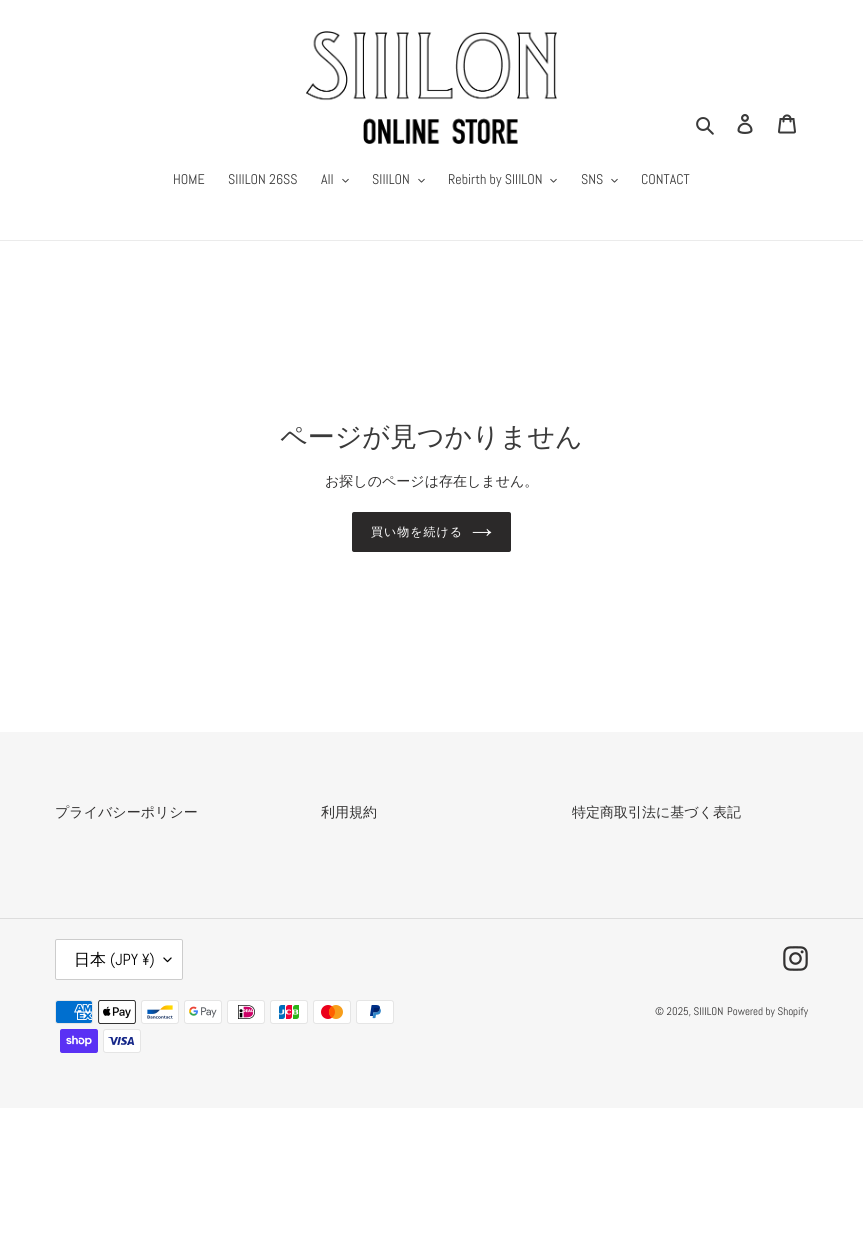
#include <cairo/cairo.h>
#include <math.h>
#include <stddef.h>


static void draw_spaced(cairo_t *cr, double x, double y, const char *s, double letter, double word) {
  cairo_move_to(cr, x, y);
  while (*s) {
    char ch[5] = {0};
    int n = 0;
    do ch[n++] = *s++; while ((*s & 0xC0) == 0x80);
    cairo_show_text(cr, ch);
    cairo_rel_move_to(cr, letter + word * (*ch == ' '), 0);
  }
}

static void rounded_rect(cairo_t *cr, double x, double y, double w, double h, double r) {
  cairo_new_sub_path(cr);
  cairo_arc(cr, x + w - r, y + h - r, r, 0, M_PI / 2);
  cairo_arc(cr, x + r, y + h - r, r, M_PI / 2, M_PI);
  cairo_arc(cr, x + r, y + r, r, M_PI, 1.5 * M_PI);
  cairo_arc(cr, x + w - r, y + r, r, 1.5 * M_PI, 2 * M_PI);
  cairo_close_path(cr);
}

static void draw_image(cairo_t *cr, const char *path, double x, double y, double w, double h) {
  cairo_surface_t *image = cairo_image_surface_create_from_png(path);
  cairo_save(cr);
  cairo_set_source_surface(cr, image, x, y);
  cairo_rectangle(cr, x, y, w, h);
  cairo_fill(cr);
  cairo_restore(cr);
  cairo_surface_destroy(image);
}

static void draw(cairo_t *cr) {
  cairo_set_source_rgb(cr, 1, 1, 1);
  cairo_paint(cr);
  draw_image(cr, "images/1.png", 306, 31, 251, 113);
  draw_image(cr, "images/2.png", 696, 117, 18, 18);
  draw_image(cr, "images/3.png", 737, 114, 16, 20);
  draw_image(cr, "images/4.png", 778, 114, 18, 20);
  cairo_set_source_rgb(cr, 235 / 255.0, 235 / 255.0, 235 / 255.0);
  cairo_rectangle(cr, 0, 240, 863, 1);
  cairo_fill(cr);
  draw_image(cr, "images/5.png", 342, 178, 7, 5);
  draw_image(cr, "images/5.png", 418, 178, 7, 5);
  draw_image(cr, "images/5.png", 550, 178, 7, 5);
  draw_image(cr, "images/5.png", 611, 178, 7, 5);
  cairo_set_source_rgb(cr, 43 / 255.0, 41 / 255.0, 41 / 255.0);
  rounded_rect(cr, 352, 512, 159, 40, 2);
  cairo_fill(cr);
  draw_image(cr, "images/6.png", 472, 528, 20, 8);
  cairo_set_source_rgb(cr, 246 / 255.0, 246 / 255.0, 246 / 255.0);
  cairo_rectangle(cr, 0, 732, 863, 376);
  cairo_fill(cr);
  cairo_set_source_rgb(cr, 221 / 255.0, 221 / 255.0, 221 / 255.0);
  cairo_rectangle(cr, 0, 918, 863, 1);
  cairo_fill(cr);
  cairo_set_source_rgb(cr, 1, 1, 1);
  rounded_rect(cr, 55, 939, 128, 41, 2);
  cairo_fill(cr);
  draw_image(cr, "images/7.png", 163, 957, 9, 6);
  rounded_rect(cr, 55.5, 939.5, 127, 40, 1.5);
  cairo_set_source_rgb(cr, 204 / 255.0, 204 / 255.0, 204 / 255.0);
  cairo_set_line_width(cr, 1);
  cairo_stroke(cr);
  draw_image(cr, "images/8.png", 783, 946, 25, 25);
  draw_image(cr, "images/9.png", 55, 1000, 38, 24);
  draw_image(cr, "images/10.png", 98, 1000, 38, 24);
  draw_image(cr, "images/11.png", 141, 1000, 38, 24);
  draw_image(cr, "images/12.png", 184, 1000, 38, 24);
  draw_image(cr, "images/13.png", 227, 1000, 38, 24);
  draw_image(cr, "images/14.png", 270, 1000, 38, 24);
  draw_image(cr, "images/15.png", 313, 1000, 38, 24);
  draw_image(cr, "images/16.png", 356, 1000, 38, 24);
  draw_image(cr, "images/17.png", 60, 1029, 38, 24);
  draw_image(cr, "images/18.png", 103, 1029, 38, 24);
  cairo_select_font_face(cr, "Abel", CAIRO_FONT_SLANT_NORMAL, CAIRO_FONT_WEIGHT_NORMAL);
  cairo_set_font_size(cr, 14);
  cairo_set_source_rgb(cr, 58 / 255.0, 58 / 255.0, 58 / 255.0);
  cairo_move_to(cr, 173, 184);
  cairo_show_text(cr, "HOME");
  cairo_move_to(cr, 228, 184);
  cairo_show_text(cr, "SIIILON 26SS");
  cairo_move_to(cr, 321, 184);
  cairo_show_text(cr, "AII");
  cairo_move_to(cr, 372, 184);
  cairo_show_text(cr, "SIIILON");
  cairo_move_to(cr, 448, 184);
  cairo_show_text(cr, "Rebirth by SIIILON");
  cairo_move_to(cr, 581, 184);
  cairo_show_text(cr, "SNS");
  cairo_move_to(cr, 641, 184);
  cairo_show_text(cr, "CONTACT");
  cairo_select_font_face(cr, "WenQuanYi Zen Hei Medium", CAIRO_FONT_SLANT_NORMAL, CAIRO_FONT_WEIGHT_NORMAL);
  cairo_set_font_size(cr, 27);
  cairo_move_to(cr, 280, 446);
  cairo_show_text(cr, "ページが見つかりません");
  cairo_set_font_size(cr, 14);
  cairo_set_source_rgb(cr, 51 / 255.0, 50 / 255.0, 50 / 255.0);
  cairo_move_to(cr, 325, 486);
  cairo_show_text(cr, "お探しのページは存在しません。");
  cairo_set_font_size(cr, 12);
  cairo_set_source_rgb(cr, 1, 1, 1);
  draw_spaced(cr, 371, 536, "買い物を続ける", 1, 0);
  cairo_set_font_size(cr, 14);
  cairo_set_source_rgb(cr, 51 / 255.0, 50 / 255.0, 50 / 255.0);
  cairo_move_to(cr, 55, 817);
  cairo_show_text(cr, "プライバシーポリシー");
  cairo_move_to(cr, 321, 817);
  cairo_show_text(cr, "利用規約");
  cairo_move_to(cr, 572, 817);
  cairo_show_text(cr, "特定商取引法に基づく表記");
  cairo_set_font_size(cr, 16);
  cairo_set_source_rgb(cr, 0, 0, 0);
  cairo_move_to(cr, 74, 965);
  cairo_show_text(cr, "日本");
  cairo_select_font_face(cr, "Abel", CAIRO_FONT_SLANT_NORMAL, CAIRO_FONT_WEIGHT_NORMAL);
  cairo_move_to(cr, 110, 965);
  cairo_show_text(cr, "(JPY ¥)");
  cairo_set_font_size(cr, 11);
  cairo_set_source_rgb(cr, 51 / 255.0, 50 / 255.0, 50 / 255.0);
  cairo_move_to(cr, 655, 1015);
  cairo_show_text(cr, "© 2025, SIIILON");
  cairo_move_to(cr, 727, 1015);
  cairo_show_text(cr, "Powered by Shopify");
}

int main(void) {
  cairo_surface_t *surface = cairo_image_surface_create(CAIRO_FORMAT_RGB24, 863, 1244);
  cairo_t *cr = cairo_create(surface);
  cairo_font_options_t *options = cairo_font_options_create();
  cairo_font_options_set_hint_metrics(options, CAIRO_HINT_METRICS_OFF);
  cairo_font_options_set_hint_style(options, CAIRO_HINT_STYLE_NONE);
  cairo_set_font_options(cr, options);
  cairo_set_miter_limit(cr, 4);
  draw(cr);
  cairo_surface_write_to_png(surface, "out.png");
  cairo_font_options_destroy(options);
  cairo_destroy(cr);
  cairo_surface_destroy(surface);
  return 0;
}
